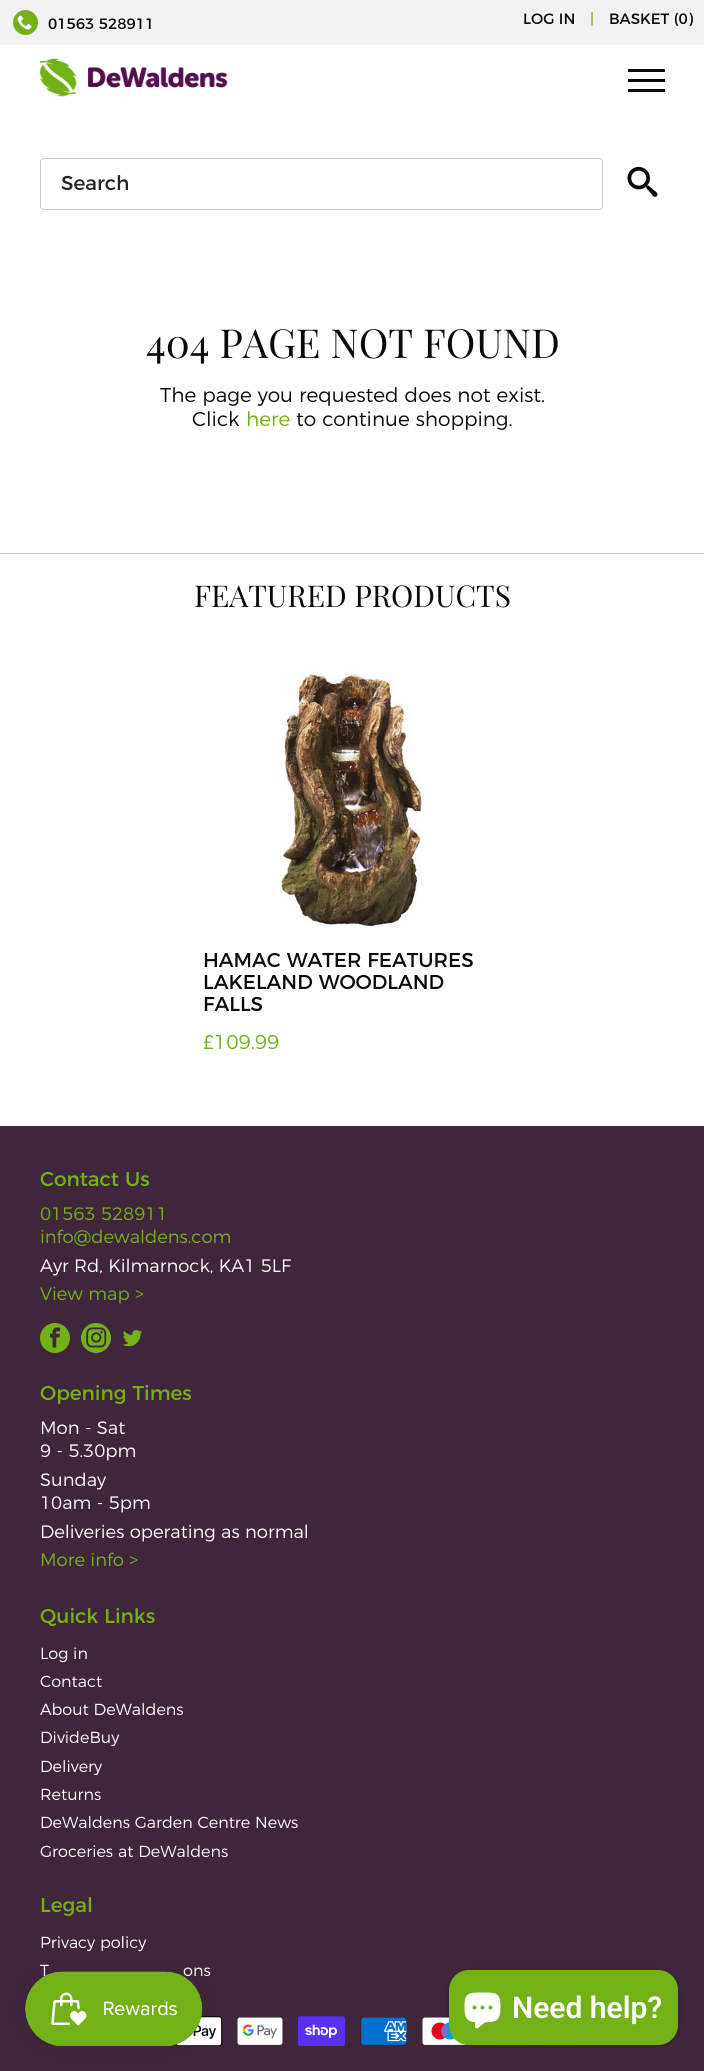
#include <cairo/cairo.h>
#include <math.h>
#include <stddef.h>


static void rounded_rect(cairo_t *cr, double x, double y, double w, double h, double r) {
  cairo_new_sub_path(cr);
  cairo_arc(cr, x + w - r, y + h - r, r, 0, M_PI / 2);
  cairo_arc(cr, x + r, y + h - r, r, M_PI / 2, M_PI);
  cairo_arc(cr, x + r, y + r, r, M_PI, 1.5 * M_PI);
  cairo_arc(cr, x + w - r, y + r, r, 1.5 * M_PI, 2 * M_PI);
  cairo_close_path(cr);
}

static void draw_shadow(cairo_t *cr, double x, double y, double w, double h, double r, double blur, double alpha) {
  cairo_push_group_with_content(cr, CAIRO_CONTENT_ALPHA);
  cairo_set_operator(cr, CAIRO_OPERATOR_SOURCE);
  for (int i = 15; i >= -15 && fmin(w, h) + blur * i / 3 > 0; i -= 2) {
    double e = blur * i / 6;
    cairo_set_source_rgba(cr, 0, 0, 0, alpha * erfc((i - 1) / 8.5) / 2);
    rounded_rect(cr, x - e, y - e, w + 2 * e, h + 2 * e, fmax(0, fmin(r + e + blur * .6, fmin(w, h) / 2 + e)));
    cairo_fill(cr);
  }
  cairo_pattern_t *soft = cairo_pop_group(cr);
  cairo_mask(cr, soft);
  cairo_pattern_destroy(soft);
}

static void draw_image(cairo_t *cr, const char *path, double x, double y, double w, double h) {
  cairo_surface_t *image = cairo_image_surface_create_from_png(path);
  cairo_save(cr);
  cairo_set_source_surface(cr, image, x, y);
  cairo_rectangle(cr, x, y, w, h);
  cairo_fill(cr);
  cairo_restore(cr);
  cairo_surface_destroy(image);
}

static void draw(cairo_t *cr) {
  cairo_set_source_rgb(cr, 1, 1, 1);
  cairo_paint(cr);
  cairo_set_source_rgb(cr, 242 / 255.0, 242 / 255.0, 242 / 255.0);
  cairo_rectangle(cr, 0, 0, 704, 45);
  cairo_fill(cr);
  cairo_set_source_rgb(cr, 114 / 255.0, 178 / 255.0, 24 / 255.0);
  cairo_arc(cr, 25.5, 22.5, 12.5, 0, 2 * M_PI);
  cairo_fill(cr);
  draw_image(cr, "images/1.png", 17, 15, 15, 15);
  draw_image(cr, "images/2.png", 40, 58, 188, 39);
  cairo_set_source_rgb(cr, 10 / 255.0, 10 / 255.0, 10 / 255.0);
  cairo_rectangle(cr, 628, 69, 37, 3);
  cairo_fill(cr);
  cairo_rectangle(cr, 628, 89, 37, 3);
  cairo_fill(cr);
  cairo_rectangle(cr, 628, 79, 37, 3);
  cairo_fill(cr);
  rounded_rect(cr, 40.5, 158.5, 562, 51, 3.5);
  cairo_set_source_rgb(cr, 202 / 255.0, 202 / 255.0, 202 / 255.0);
  cairo_set_line_width(cr, 1);
  cairo_stroke(cr);
  draw_image(cr, "images/3.png", 627, 166, 31, 31);
  cairo_rectangle(cr, 0, 553, 704, 1);
  cairo_fill(cr);
  draw_image(cr, "images/4.png", 280, 671, 143, 257);
  cairo_set_source_rgb(cr, 63 / 255.0, 38 / 255.0, 59 / 255.0);
  cairo_rectangle(cr, 0, 1126, 704, 945);
  cairo_fill(cr);
  cairo_set_source_rgb(cr, 114 / 255.0, 178 / 255.0, 24 / 255.0);
  cairo_arc(cr, 55, 1338, 15, 0, 2 * M_PI);
  cairo_fill(cr);
  draw_image(cr, "images/5.png", 50, 1327, 10, 21);
  cairo_arc(cr, 96, 1338, 15, 0, 2 * M_PI);
  cairo_fill(cr);
  draw_image(cr, "images/6.png", 86, 1327, 21, 21);
  draw_image(cr, "images/7.png", 122, 1330, 21, 17);
  draw_image(cr, "images/8.png", 175, 2016, 48, 30);
  draw_image(cr, "images/9.png", 237, 2017, 46, 29);
  draw_image(cr, "images/10.png", 298, 2016, 47, 30);
  draw_image(cr, "images/11.png", 360, 2017, 47, 29);
  draw_image(cr, "images/12.png", 422, 2017, 46, 29);
  draw_image(cr, "images/13.png", 484, 2045, 45, 1);
  draw_image(cr, "images/14.png", 545, 2045, 45, 1);
  cairo_set_source_rgb(cr, 0, 0, 0);
  draw_shadow(cr, 25, 1971, 178, 75, 37.5, 15.5, 0.05);
  draw_shadow(cr, 449, 1970, 229, 75, 20, 3, 0.15);
  cairo_set_source_rgb(cr, 114 / 255.0, 178 / 255.0, 24 / 255.0);
  rounded_rect(cr, 449, 1970, 229, 75, 20);
  cairo_fill(cr);
  draw_image(cr, "images/16.png", 464, 1992, 37, 37);
  cairo_select_font_face(cr, "Montserrat", CAIRO_FONT_SLANT_NORMAL, CAIRO_FONT_WEIGHT_NORMAL);
  cairo_set_font_size(cr, 15);
  cairo_set_source_rgb(cr, 10 / 255.0, 10 / 255.0, 10 / 255.0);
  cairo_move_to(cr, 48, 29);
  cairo_show_text(cr, "01563 528911");
  cairo_move_to(cr, 523, 24);
  cairo_show_text(cr, "LOG IN");
  cairo_set_source_rgb(cr, 114 / 255.0, 178 / 255.0, 24 / 255.0);
  cairo_move_to(cr, 590, 24);
  cairo_show_text(cr, "|");
  cairo_set_source_rgb(cr, 10 / 255.0, 10 / 255.0, 10 / 255.0);
  cairo_move_to(cr, 609, 24);
  cairo_show_text(cr, "BASKET (0)");
  cairo_set_font_size(cr, 20);
  cairo_set_source_rgb(cr, 38 / 255.0, 38 / 255.0, 38 / 255.0);
  cairo_move_to(cr, 61, 190);
  cairo_show_text(cr, "Search");
  cairo_select_font_face(cr, "Playfair Display", CAIRO_FONT_SLANT_NORMAL, CAIRO_FONT_WEIGHT_NORMAL);
  cairo_set_font_size(cr, 40);
  cairo_set_source_rgb(cr, 10 / 255.0, 10 / 255.0, 10 / 255.0);
  cairo_move_to(cr, 146, 358);
  cairo_show_text(cr, "404 PAGE NOT FOUND");
  cairo_select_font_face(cr, "Montserrat Light", CAIRO_FONT_SLANT_NORMAL, CAIRO_FONT_WEIGHT_NORMAL);
  cairo_set_font_size(cr, 20);
  cairo_move_to(cr, 160, 402);
  cairo_show_text(cr, "The page you requested does not exist.");
  cairo_move_to(cr, 192, 426);
  cairo_show_text(cr, "Click");
  cairo_set_source_rgb(cr, 114 / 255.0, 178 / 255.0, 24 / 255.0);
  cairo_move_to(cr, 246, 426);
  cairo_show_text(cr, "here");
  cairo_set_source_rgb(cr, 10 / 255.0, 10 / 255.0, 10 / 255.0);
  cairo_move_to(cr, 296, 426);
  cairo_show_text(cr, "to continue shopping.");
  cairo_select_font_face(cr, "Playfair Display", CAIRO_FONT_SLANT_NORMAL, CAIRO_FONT_WEIGHT_NORMAL);
  cairo_set_font_size(cr, 30);
  cairo_move_to(cr, 194, 607);
  cairo_show_text(cr, "FEATURED PRODUCTS");
  cairo_select_font_face(cr, "Montserrat", CAIRO_FONT_SLANT_NORMAL, CAIRO_FONT_WEIGHT_NORMAL);
  cairo_set_font_size(cr, 20);
  cairo_move_to(cr, 203, 967);
  cairo_show_text(cr, "HAMAC WATER FEATURES");
  cairo_move_to(cr, 203, 989);
  cairo_show_text(cr, "LAKELAND WOODLAND");
  cairo_move_to(cr, 203, 1011);
  cairo_show_text(cr, "FALLS");
  cairo_select_font_face(cr, "Montserrat Light", CAIRO_FONT_SLANT_NORMAL, CAIRO_FONT_WEIGHT_NORMAL);
  cairo_set_source_rgb(cr, 114 / 255.0, 178 / 255.0, 24 / 255.0);
  cairo_move_to(cr, 203, 1049);
  cairo_show_text(cr, "£109.99");
  cairo_select_font_face(cr, "Montserrat", CAIRO_FONT_SLANT_NORMAL, CAIRO_FONT_WEIGHT_NORMAL);
  cairo_move_to(cr, 40, 1186);
  cairo_show_text(cr, "Contact Us");
  cairo_select_font_face(cr, "Montserrat Light", CAIRO_FONT_SLANT_NORMAL, CAIRO_FONT_WEIGHT_NORMAL);
  cairo_set_font_size(cr, 18);
  cairo_move_to(cr, 40, 1220);
  cairo_show_text(cr, "01563 528911");
  cairo_move_to(cr, 40, 1243);
  cairo_show_text(cr, "info@dewaldens.com");
  cairo_set_source_rgb(cr, 254 / 255.0, 254 / 255.0, 254 / 255.0);
  cairo_move_to(cr, 40, 1272);
  cairo_show_text(cr, "Ayr Rd, Kilmarnock, KA1 5LF");
  cairo_set_source_rgb(cr, 114 / 255.0, 178 / 255.0, 24 / 255.0);
  cairo_move_to(cr, 40, 1300);
  cairo_show_text(cr, "View map >");
  cairo_select_font_face(cr, "Montserrat", CAIRO_FONT_SLANT_NORMAL, CAIRO_FONT_WEIGHT_NORMAL);
  cairo_set_font_size(cr, 20);
  cairo_move_to(cr, 40, 1400);
  cairo_show_text(cr, "Opening Times");
  cairo_select_font_face(cr, "Montserrat Light", CAIRO_FONT_SLANT_NORMAL, CAIRO_FONT_WEIGHT_NORMAL);
  cairo_set_font_size(cr, 18);
  cairo_set_source_rgb(cr, 254 / 255.0, 254 / 255.0, 254 / 255.0);
  cairo_move_to(cr, 40, 1434);
  cairo_show_text(cr, "Mon - Sat");
  cairo_move_to(cr, 40, 1457);
  cairo_show_text(cr, "9 - 5.30pm");
  cairo_move_to(cr, 40, 1486);
  cairo_show_text(cr, "Sunday");
  cairo_move_to(cr, 40, 1509);
  cairo_show_text(cr, "10am - 5pm");
  cairo_move_to(cr, 40, 1538);
  cairo_show_text(cr, "Deliveries operating as normal");
  cairo_set_source_rgb(cr, 114 / 255.0, 178 / 255.0, 24 / 255.0);
  cairo_move_to(cr, 40, 1566);
  cairo_show_text(cr, "More info >");
  cairo_select_font_face(cr, "Montserrat", CAIRO_FONT_SLANT_NORMAL, CAIRO_FONT_WEIGHT_NORMAL);
  cairo_set_font_size(cr, 20);
  cairo_move_to(cr, 40, 1623);
  cairo_show_text(cr, "Quick Links");
  cairo_select_font_face(cr, "Montserrat Light", CAIRO_FONT_SLANT_NORMAL, CAIRO_FONT_WEIGHT_NORMAL);
  cairo_set_font_size(cr, 16);
  cairo_set_source_rgb(cr, 254 / 255.0, 254 / 255.0, 254 / 255.0);
  cairo_move_to(cr, 40, 1659);
  cairo_show_text(cr, "Log in");
  cairo_move_to(cr, 40, 1687);
  cairo_show_text(cr, "Contact");
  cairo_move_to(cr, 40, 1715);
  cairo_show_text(cr, "About DeWaldens");
  cairo_move_to(cr, 40, 1743);
  cairo_show_text(cr, "DivideBuy");
  cairo_move_to(cr, 40, 1772);
  cairo_show_text(cr, "Delivery");
  cairo_move_to(cr, 40, 1800);
  cairo_show_text(cr, "Returns");
  cairo_move_to(cr, 40, 1828);
  cairo_show_text(cr, "DeWaldens Garden Centre News");
  cairo_move_to(cr, 40, 1857);
  cairo_show_text(cr, "Groceries at DeWaldens");
  cairo_select_font_face(cr, "Montserrat", CAIRO_FONT_SLANT_NORMAL, CAIRO_FONT_WEIGHT_NORMAL);
  cairo_set_font_size(cr, 20);
  cairo_set_source_rgb(cr, 114 / 255.0, 178 / 255.0, 24 / 255.0);
  cairo_move_to(cr, 40, 1912);
  cairo_show_text(cr, "Legal");
  cairo_select_font_face(cr, "Montserrat Light", CAIRO_FONT_SLANT_NORMAL, CAIRO_FONT_WEIGHT_NORMAL);
  cairo_set_font_size(cr, 16);
  cairo_set_source_rgb(cr, 254 / 255.0, 254 / 255.0, 254 / 255.0);
  cairo_move_to(cr, 40, 1948);
  cairo_show_text(cr, "Privacy policy");
  cairo_move_to(cr, 40, 1976);
  cairo_show_text(cr, "T");
  cairo_move_to(cr, 183, 1976);
  cairo_show_text(cr, "ons");
  draw_image(cr, "images/15.png", 25, 1971, 178, 75);
  cairo_select_font_face(cr, "Roboto SemiBold", CAIRO_FONT_SLANT_NORMAL, CAIRO_FONT_WEIGHT_NORMAL);
  cairo_set_font_size(cr, 30);
  cairo_move_to(cr, 512, 2018);
  cairo_show_text(cr, "Need help?");
}

int main(void) {
  cairo_surface_t *surface = cairo_image_surface_create(CAIRO_FORMAT_RGB24, 704, 2071);
  cairo_t *cr = cairo_create(surface);
  cairo_font_options_t *options = cairo_font_options_create();
  cairo_font_options_set_hint_metrics(options, CAIRO_HINT_METRICS_OFF);
  cairo_font_options_set_hint_style(options, CAIRO_HINT_STYLE_NONE);
  cairo_set_font_options(cr, options);
  cairo_set_miter_limit(cr, 4);
  draw(cr);
  cairo_surface_write_to_png(surface, "out.png");
  cairo_font_options_destroy(options);
  cairo_destroy(cr);
  cairo_surface_destroy(surface);
  return 0;
}
